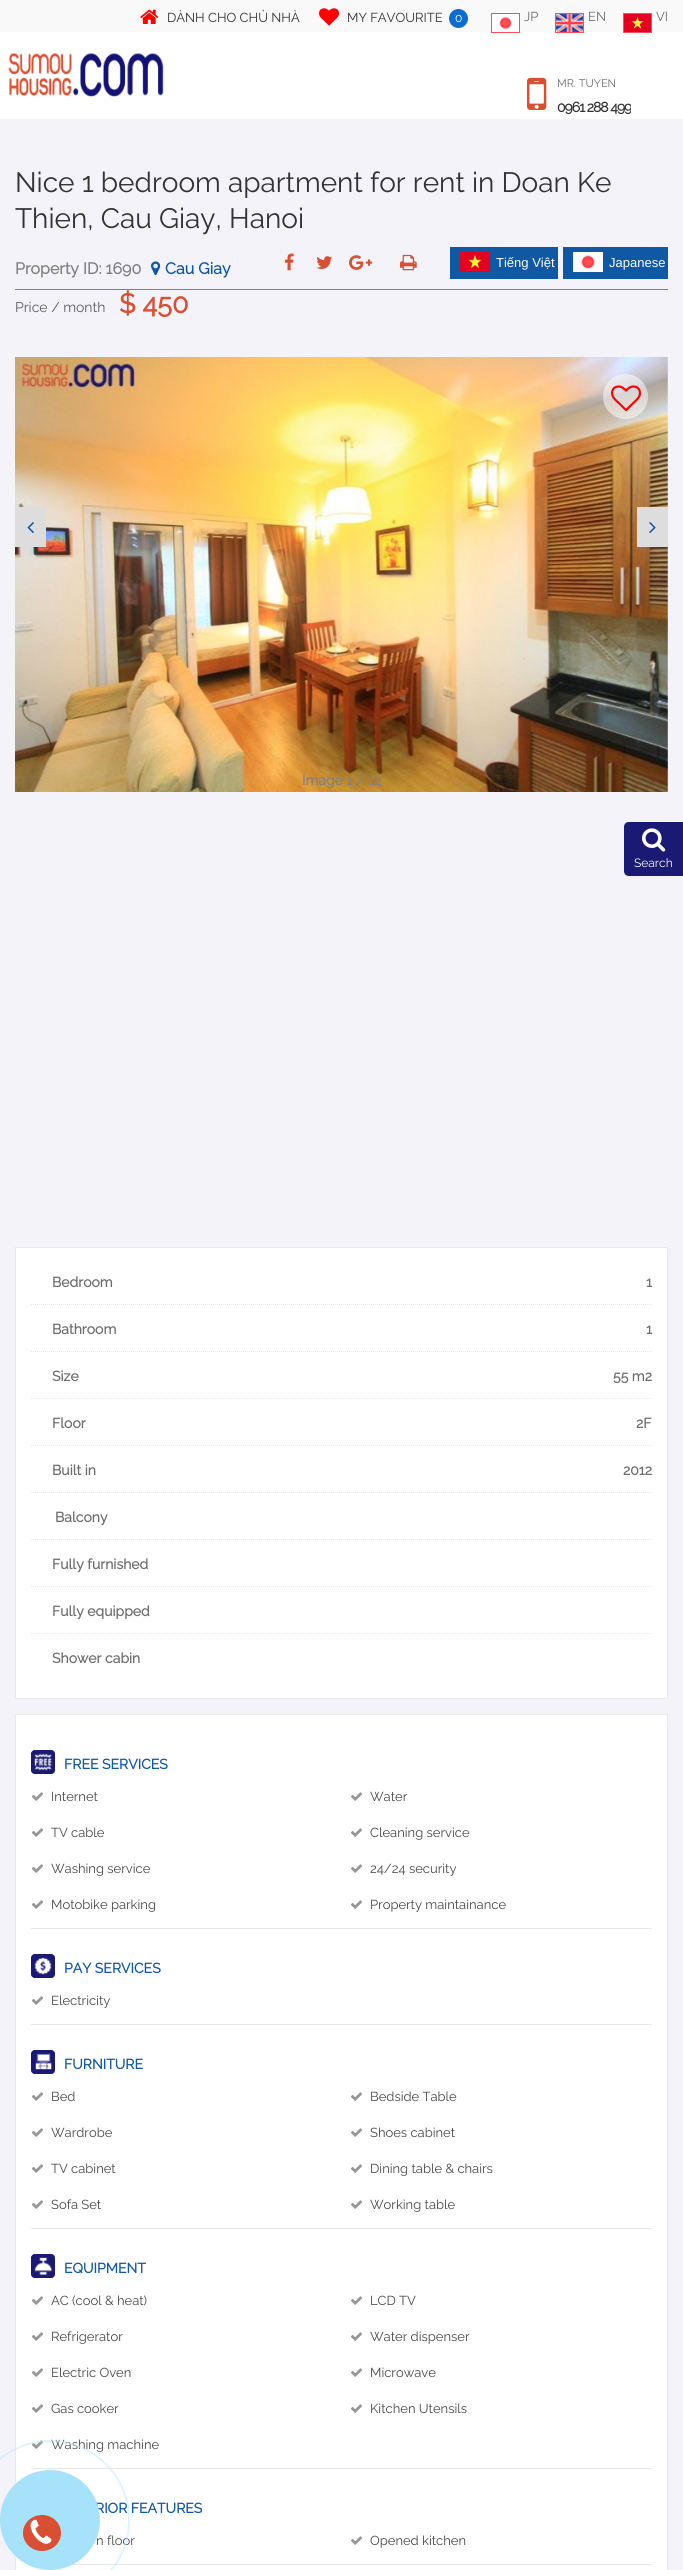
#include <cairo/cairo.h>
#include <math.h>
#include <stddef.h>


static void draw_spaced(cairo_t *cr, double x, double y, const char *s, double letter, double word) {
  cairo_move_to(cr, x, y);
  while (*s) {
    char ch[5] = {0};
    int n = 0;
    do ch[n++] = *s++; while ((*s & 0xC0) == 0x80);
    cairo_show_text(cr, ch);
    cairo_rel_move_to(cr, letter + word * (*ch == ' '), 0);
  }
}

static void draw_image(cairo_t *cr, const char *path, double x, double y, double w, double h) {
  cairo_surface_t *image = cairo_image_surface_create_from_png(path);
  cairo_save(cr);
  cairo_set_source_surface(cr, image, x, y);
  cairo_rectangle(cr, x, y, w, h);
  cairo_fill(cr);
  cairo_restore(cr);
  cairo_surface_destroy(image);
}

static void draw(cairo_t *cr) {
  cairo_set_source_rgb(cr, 244 / 255.0, 243 / 255.0, 249 / 255.0);
  cairo_paint(cr);
  cairo_set_source_rgb(cr, 249 / 255.0, 249 / 255.0, 249 / 255.0);
  cairo_rectangle(cr, 0, 0, 683, 32);
  cairo_fill(cr);
  draw_image(cr, "images/1.png", 140, 9, 19, 15);
  draw_image(cr, "images/2.png", 319, 8, 20, 18);
  cairo_set_source_rgb(cr, 11 / 255.0, 108 / 255.0, 208 / 255.0);
  cairo_arc(cr, 458.5, 18.5, 9.5, 0, 2 * M_PI);
  cairo_fill(cr);
  cairo_set_source_rgb(cr, 1, 1, 1);
  cairo_rectangle(cr, 0, 32, 683, 87);
  cairo_fill(cr);
  cairo_rectangle(cr, 491.5, 13.5, 28, 19);
  cairo_set_source_rgb(cr, 1, 77 / 255.0, 87 / 255.0);
  cairo_set_line_width(cr, 1);
  cairo_stroke(cr);
  draw_image(cr, "images/3.png", 492, 14, 27, 18);
  cairo_rectangle(cr, 555.5, 13.5, 28, 19);
  cairo_stroke(cr);
  draw_image(cr, "images/4.png", 556, 14, 27, 18);
  cairo_rectangle(cr, 623.5, 13.5, 28, 19);
  cairo_stroke(cr);
  draw_image(cr, "images/5.png", 624, 14, 27, 18);
  draw_image(cr, "images/6.png", 8, 52, 156, 45);
  draw_image(cr, "images/7.png", 527, 77, 20, 33);
  cairo_set_source_rgb(cr, 129 / 255.0, 129 / 255.0, 129 / 255.0);
  cairo_rectangle(cr, 15, 289, 653, 1);
  cairo_fill(cr);
  draw_image(cr, "images/8.png", 151, 261, 10, 15);
  draw_image(cr, "images/9.png", 284, 253, 10, 18);
  draw_image(cr, "images/10.png", 316, 256, 17, 13);
  draw_image(cr, "images/11.png", 349, 255, 24, 15);
  draw_image(cr, "images/12.png", 400, 254, 17, 17);
  cairo_set_source_rgb(cr, 15 / 255.0, 88 / 255.0, 163 / 255.0);
  cairo_rectangle(cr, 450, 247, 108, 32);
  cairo_fill(cr);
  draw_image(cr, "images/13.png", 460, 252, 30, 20);
  cairo_rectangle(cr, 563, 247, 105, 32);
  cairo_fill(cr);
  draw_image(cr, "images/14.png", 573, 252, 30, 20);
  draw_image(cr, "images/15.png", 15, 357, 653, 435);
  cairo_set_source_rgba(cr, 1, 1, 1, 0.5);
  cairo_arc(cr, 625.5, 396.5, 22.5, 0, 2 * M_PI);
  cairo_fill(cr);
  draw_image(cr, "images/16.png", 611, 385, 30, 27);
  cairo_set_source_rgb(cr, 221 / 255.0, 221 / 255.0, 221 / 255.0);
  cairo_rectangle(cr, 15, 507, 31, 40);
  cairo_fill(cr);
  draw_image(cr, "images/17.png", 27, 522, 7, 12);
  cairo_rectangle(cr, 637, 507, 31, 40);
  cairo_fill(cr);
  draw_image(cr, "images/18.png", 649, 522, 7, 12);
  cairo_set_source_rgb(cr, 1, 1, 1);
  cairo_rectangle(cr, 15.5, 1247.5, 652, 451);
  cairo_fill_preserve(cr);
  cairo_set_source_rgb(cr, 233 / 255.0, 233 / 255.0, 233 / 255.0);
  cairo_stroke(cr);
  cairo_new_path(cr);
  cairo_move_to(cr, 31, 1304.5);
  cairo_line_to(cr, 652, 1304.5);
  cairo_set_source_rgb(cr, 230 / 255.0, 230 / 255.0, 230 / 255.0);
  cairo_set_dash(cr, (double[]){1, 1}, 2, 0);
  cairo_stroke(cr);
  cairo_new_path(cr);
  cairo_move_to(cr, 31, 1351.5);
  cairo_line_to(cr, 652, 1351.5);
  cairo_stroke(cr);
  cairo_new_path(cr);
  cairo_move_to(cr, 31, 1398.5);
  cairo_line_to(cr, 652, 1398.5);
  cairo_stroke(cr);
  cairo_new_path(cr);
  cairo_move_to(cr, 31, 1445.5);
  cairo_line_to(cr, 652, 1445.5);
  cairo_stroke(cr);
  cairo_new_path(cr);
  cairo_move_to(cr, 31, 1492.5);
  cairo_line_to(cr, 652, 1492.5);
  cairo_stroke(cr);
  cairo_new_path(cr);
  cairo_move_to(cr, 31, 1539.5);
  cairo_line_to(cr, 652, 1539.5);
  cairo_stroke(cr);
  cairo_new_path(cr);
  cairo_move_to(cr, 31, 1586.5);
  cairo_line_to(cr, 652, 1586.5);
  cairo_stroke(cr);
  cairo_new_path(cr);
  cairo_move_to(cr, 31, 1633.5);
  cairo_line_to(cr, 652, 1633.5);
  cairo_stroke(cr);
  cairo_set_source_rgb(cr, 1, 1, 1);
  cairo_rectangle(cr, 15.5, 1714.5, 652, 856);
  cairo_fill_preserve(cr);
  cairo_set_source_rgb(cr, 233 / 255.0, 233 / 255.0, 233 / 255.0);
  cairo_set_dash(cr, NULL, 0, 0);
  cairo_stroke(cr);
  cairo_set_source_rgb(cr, 232 / 255.0, 232 / 255.0, 232 / 255.0);
  cairo_rectangle(cr, 31, 1928, 621, 1);
  cairo_fill(cr);
  draw_image(cr, "images/19.png", 31, 1750, 24, 24);
  draw_image(cr, "images/20.png", 32, 1792, 11, 9);
  draw_image(cr, "images/20.png", 351, 1792, 11, 9);
  draw_image(cr, "images/20.png", 32, 1828, 11, 9);
  draw_image(cr, "images/20.png", 351, 1828, 11, 9);
  draw_image(cr, "images/20.png", 32, 1864, 11, 9);
  draw_image(cr, "images/20.png", 351, 1864, 11, 9);
  draw_image(cr, "images/20.png", 32, 1900, 11, 9);
  draw_image(cr, "images/20.png", 351, 1900, 11, 9);
  cairo_rectangle(cr, 31, 2024, 621, 1);
  cairo_fill(cr);
  draw_image(cr, "images/21.png", 31, 1954, 24, 24);
  draw_image(cr, "images/20.png", 32, 1996, 11, 9);
  cairo_rectangle(cr, 31, 2228, 621, 1);
  cairo_fill(cr);
  draw_image(cr, "images/22.png", 31, 2050, 24, 24);
  draw_image(cr, "images/20.png", 32, 2092, 11, 9);
  draw_image(cr, "images/20.png", 351, 2092, 11, 9);
  draw_image(cr, "images/20.png", 32, 2128, 11, 9);
  draw_image(cr, "images/20.png", 351, 2128, 11, 9);
  draw_image(cr, "images/20.png", 32, 2164, 11, 9);
  draw_image(cr, "images/20.png", 351, 2164, 11, 9);
  draw_image(cr, "images/20.png", 32, 2200, 11, 9);
  draw_image(cr, "images/20.png", 351, 2200, 11, 9);
  cairo_rectangle(cr, 31, 2468, 621, 1);
  cairo_fill(cr);
  draw_image(cr, "images/23.png", 31, 2254, 24, 24);
  draw_image(cr, "images/20.png", 32, 2296, 11, 9);
  draw_image(cr, "images/20.png", 351, 2296, 11, 9);
  draw_image(cr, "images/20.png", 32, 2332, 11, 9);
  draw_image(cr, "images/20.png", 351, 2332, 11, 9);
  draw_image(cr, "images/20.png", 32, 2368, 11, 9);
  draw_image(cr, "images/20.png", 351, 2368, 11, 9);
  draw_image(cr, "images/20.png", 32, 2404, 11, 9);
  draw_image(cr, "images/20.png", 351, 2404, 11, 9);
  draw_image(cr, "images/20.png", 32, 2440, 11, 9);
  cairo_rectangle(cr, 71, 2564, 581, 1);
  cairo_fill(cr);
  draw_image(cr, "images/20.png", 351, 2536, 11, 9);
  cairo_set_source_rgb(cr, 26 / 255.0, 26 / 255.0, 116 / 255.0);
  cairo_new_path(cr);
  cairo_move_to(cr, 629, 822);
  cairo_line_to(cr, 683, 822);
  cairo_line_to(cr, 683, 876);
  cairo_line_to(cr, 629, 876);
  cairo_curve_to(cr, 626, 876, 624, 874, 624, 871);
  cairo_line_to(cr, 624, 827);
  cairo_curve_to(cr, 624, 824, 626, 822, 629, 822);
  cairo_close_path(cr);
  cairo_fill(cr);
  draw_image(cr, "images/24.png", 642, 828, 24, 24);
  cairo_select_font_face(cr, "Raleway Thin", CAIRO_FONT_SLANT_NORMAL, CAIRO_FONT_WEIGHT_NORMAL);
  cairo_set_font_size(cr, 13);
  cairo_set_source_rgb(cr, 51 / 255.0, 51 / 255.0, 51 / 255.0);
  cairo_move_to(cr, 167, 22);
  cairo_show_text(cr, "DÀNH CHO CHỦ NHÀ");
  cairo_move_to(cr, 347, 22);
  cairo_show_text(cr, "MY FAVOURITE");
  cairo_set_font_size(cr, 12);
  cairo_set_source_rgb(cr, 1, 1, 1);
  cairo_move_to(cr, 455, 22);
  cairo_show_text(cr, "0");
  cairo_set_font_size(cr, 13);
  cairo_set_source_rgb(cr, 109 / 255.0, 109 / 255.0, 109 / 255.0);
  cairo_move_to(cr, 524, 21);
  cairo_show_text(cr, "JP");
  cairo_move_to(cr, 588, 21);
  cairo_show_text(cr, "EN");
  cairo_move_to(cr, 656, 21);
  cairo_show_text(cr, "VI");
  cairo_set_font_size(cr, 11);
  cairo_move_to(cr, 557, 87);
  cairo_show_text(cr, "MR. TUYEN");
  cairo_save(cr);
  cairo_rectangle(cr, 557, 72, 74, 44);
  cairo_clip(cr);
  cairo_select_font_face(cr, "Raleway", CAIRO_FONT_SLANT_NORMAL, CAIRO_FONT_WEIGHT_BOLD);
  cairo_set_font_size(cr, 14);
  cairo_set_source_rgb(cr, 51 / 255.0, 51 / 255.0, 51 / 255.0);
  draw_spaced(cr, 557, 112, "0961 288 499", -1, 0);
  cairo_restore(cr);
  cairo_set_font_size(cr, 28);
  cairo_set_source_rgb(cr, 51 / 255.0, 51 / 255.0, 51 / 255.0);
  cairo_move_to(cr, 15, 192);
  cairo_show_text(cr, "Nice 1 bedroom apartment for rent in Doan Ke");
  cairo_move_to(cr, 15, 228);
  cairo_show_text(cr, "Thien, Cau Giay, Hanoi");
  cairo_select_font_face(cr, "Raleway", CAIRO_FONT_SLANT_NORMAL, CAIRO_FONT_WEIGHT_BOLD);
  cairo_set_font_size(cr, 16);
  cairo_set_source_rgb(cr, 129 / 255.0, 129 / 255.0, 129 / 255.0);
  cairo_move_to(cr, 15, 274);
  cairo_show_text(cr, "Property ID: 1690");
  cairo_set_source_rgb(cr, 15 / 255.0, 88 / 255.0, 163 / 255.0);
  cairo_move_to(cr, 165, 274);
  cairo_show_text(cr, "Cau Giay");
  cairo_select_font_face(cr, "Liberation Sans", CAIRO_FONT_SLANT_NORMAL, CAIRO_FONT_WEIGHT_NORMAL);
  cairo_set_font_size(cr, 13);
  cairo_set_source_rgb(cr, 1, 1, 1);
  cairo_move_to(cr, 496, 267);
  cairo_show_text(cr, "Tiếng Việt");
  cairo_move_to(cr, 609, 267);
  cairo_show_text(cr, "Japanese");
  cairo_select_font_face(cr, "Raleway Thin", CAIRO_FONT_SLANT_NORMAL, CAIRO_FONT_WEIGHT_NORMAL);
  cairo_set_font_size(cr, 14);
  cairo_set_source_rgb(cr, 94 / 255.0, 94 / 255.0, 94 / 255.0);
  cairo_move_to(cr, 15, 312);
  cairo_show_text(cr, "Price / month");
  cairo_select_font_face(cr, "Raleway", CAIRO_FONT_SLANT_NORMAL, CAIRO_FONT_WEIGHT_BOLD);
  cairo_set_font_size(cr, 27);
  cairo_set_source_rgb(cr, 216 / 255.0, 79 / 255.0, 51 / 255.0);
  cairo_move_to(cr, 119, 313);
  cairo_show_text(cr, "$ 450");
  cairo_set_font_size(cr, 14);
  cairo_set_source_rgb(cr, 129 / 255.0, 129 / 255.0, 129 / 255.0);
  cairo_move_to(cr, 302, 785);
  cairo_show_text(cr, "Image 1 / 12");
  cairo_set_source_rgb(cr, 109 / 255.0, 109 / 255.0, 109 / 255.0);
  cairo_move_to(cr, 52, 1287);
  cairo_show_text(cr, "Bedroom");
  cairo_move_to(cr, 646, 1287);
  cairo_show_text(cr, "1");
  cairo_move_to(cr, 52, 1334);
  cairo_show_text(cr, "Bathroom");
  cairo_move_to(cr, 646, 1334);
  cairo_show_text(cr, "1");
  cairo_move_to(cr, 52, 1381);
  cairo_show_text(cr, "Size");
  cairo_move_to(cr, 613, 1381);
  cairo_show_text(cr, "55 m2");
  cairo_move_to(cr, 52, 1428);
  cairo_show_text(cr, "Floor");
  cairo_move_to(cr, 636, 1428);
  cairo_show_text(cr, "2F");
  cairo_move_to(cr, 52, 1475);
  cairo_show_text(cr, "Built in");
  cairo_move_to(cr, 623, 1475);
  cairo_show_text(cr, "2012");
  cairo_move_to(cr, 55, 1522);
  cairo_show_text(cr, "Balcony");
  cairo_move_to(cr, 52, 1569);
  cairo_show_text(cr, "Fully furnished");
  cairo_move_to(cr, 52, 1616);
  cairo_show_text(cr, "Fully equipped");
  cairo_move_to(cr, 52, 1663);
  cairo_show_text(cr, "Shower cabin");
  cairo_set_source_rgb(cr, 15 / 255.0, 88 / 255.0, 163 / 255.0);
  cairo_move_to(cr, 64, 1769);
  cairo_show_text(cr, "FREE SERVICES");
  cairo_select_font_face(cr, "Raleway Thin", CAIRO_FONT_SLANT_NORMAL, CAIRO_FONT_WEIGHT_NORMAL);
  cairo_set_font_size(cr, 13);
  cairo_set_source_rgb(cr, 73 / 255.0, 73 / 255.0, 73 / 255.0);
  cairo_move_to(cr, 51, 1801);
  cairo_show_text(cr, "Internet");
  cairo_move_to(cr, 370, 1801);
  cairo_show_text(cr, "Water");
  cairo_move_to(cr, 51, 1837);
  cairo_show_text(cr, "TV cable");
  cairo_move_to(cr, 370, 1837);
  cairo_show_text(cr, "Cleaning service");
  cairo_move_to(cr, 51, 1873);
  cairo_show_text(cr, "Washing service");
  cairo_move_to(cr, 370, 1873);
  cairo_show_text(cr, "24/24 security");
  cairo_move_to(cr, 51, 1909);
  cairo_show_text(cr, "Motobike parking");
  cairo_move_to(cr, 370, 1909);
  cairo_show_text(cr, "Property maintainance");
  cairo_select_font_face(cr, "Raleway", CAIRO_FONT_SLANT_NORMAL, CAIRO_FONT_WEIGHT_BOLD);
  cairo_set_font_size(cr, 14);
  cairo_set_source_rgb(cr, 15 / 255.0, 88 / 255.0, 163 / 255.0);
  cairo_move_to(cr, 64, 1973);
  cairo_show_text(cr, "PAY SERVICES");
  cairo_select_font_face(cr, "Raleway Thin", CAIRO_FONT_SLANT_NORMAL, CAIRO_FONT_WEIGHT_NORMAL);
  cairo_set_font_size(cr, 13);
  cairo_set_source_rgb(cr, 73 / 255.0, 73 / 255.0, 73 / 255.0);
  cairo_move_to(cr, 51, 2005);
  cairo_show_text(cr, "Electricity");
  cairo_select_font_face(cr, "Raleway", CAIRO_FONT_SLANT_NORMAL, CAIRO_FONT_WEIGHT_BOLD);
  cairo_set_font_size(cr, 14);
  cairo_set_source_rgb(cr, 15 / 255.0, 88 / 255.0, 163 / 255.0);
  cairo_move_to(cr, 64, 2069);
  cairo_show_text(cr, "FURNITURE");
  cairo_select_font_face(cr, "Raleway Thin", CAIRO_FONT_SLANT_NORMAL, CAIRO_FONT_WEIGHT_NORMAL);
  cairo_set_font_size(cr, 13);
  cairo_set_source_rgb(cr, 73 / 255.0, 73 / 255.0, 73 / 255.0);
  cairo_move_to(cr, 51, 2101);
  cairo_show_text(cr, "Bed");
  cairo_move_to(cr, 370, 2101);
  cairo_show_text(cr, "Bedside Table");
  cairo_move_to(cr, 51, 2137);
  cairo_show_text(cr, "Wardrobe");
  cairo_move_to(cr, 370, 2137);
  cairo_show_text(cr, "Shoes cabinet");
  cairo_move_to(cr, 51, 2173);
  cairo_show_text(cr, "TV cabinet");
  cairo_move_to(cr, 370, 2173);
  cairo_show_text(cr, "Dining table & chairs");
  cairo_move_to(cr, 51, 2209);
  cairo_show_text(cr, "Sofa Set");
  cairo_move_to(cr, 370, 2209);
  cairo_show_text(cr, "Working table");
  cairo_select_font_face(cr, "Raleway", CAIRO_FONT_SLANT_NORMAL, CAIRO_FONT_WEIGHT_BOLD);
  cairo_set_font_size(cr, 14);
  cairo_set_source_rgb(cr, 15 / 255.0, 88 / 255.0, 163 / 255.0);
  cairo_move_to(cr, 64, 2273);
  cairo_show_text(cr, "EQUIPMENT");
  cairo_select_font_face(cr, "Raleway Thin", CAIRO_FONT_SLANT_NORMAL, CAIRO_FONT_WEIGHT_NORMAL);
  cairo_set_font_size(cr, 13);
  cairo_set_source_rgb(cr, 73 / 255.0, 73 / 255.0, 73 / 255.0);
  cairo_move_to(cr, 51, 2305);
  cairo_show_text(cr, "AC (cool & heat)");
  cairo_move_to(cr, 370, 2305);
  cairo_show_text(cr, "LCD TV");
  cairo_move_to(cr, 51, 2341);
  cairo_show_text(cr, "Refrigerator");
  cairo_move_to(cr, 370, 2341);
  cairo_show_text(cr, "Water dispenser");
  cairo_move_to(cr, 51, 2377);
  cairo_show_text(cr, "Electric Oven");
  cairo_move_to(cr, 370, 2377);
  cairo_show_text(cr, "Microwave");
  cairo_move_to(cr, 51, 2413);
  cairo_show_text(cr, "Gas cooker");
  cairo_move_to(cr, 370, 2413);
  cairo_show_text(cr, "Kitchen Utensils");
  cairo_move_to(cr, 51, 2449);
  cairo_show_text(cr, "Washing machine");
  cairo_select_font_face(cr, "Raleway", CAIRO_FONT_SLANT_NORMAL, CAIRO_FONT_WEIGHT_BOLD);
  cairo_set_font_size(cr, 14);
  cairo_set_source_rgb(cr, 15 / 255.0, 88 / 255.0, 163 / 255.0);
  cairo_move_to(cr, 95, 2513);
  cairo_show_text(cr, "RIOR FEATURES");
  cairo_select_font_face(cr, "Raleway Thin", CAIRO_FONT_SLANT_NORMAL, CAIRO_FONT_WEIGHT_NORMAL);
  cairo_set_font_size(cr, 13);
  cairo_set_source_rgb(cr, 73 / 255.0, 73 / 255.0, 73 / 255.0);
  cairo_move_to(cr, 96, 2545);
  cairo_show_text(cr, "n floor");
  cairo_move_to(cr, 370, 2545);
  cairo_show_text(cr, "Opened kitchen");
  cairo_set_font_size(cr, 12);
  cairo_set_source_rgb(cr, 1, 1, 1);
  cairo_move_to(cr, 634, 867);
  cairo_show_text(cr, "Search");
  cairo_new_path(cr);
  cairo_arc(cr, 50, 2520, 79, 0, 2 * M_PI);
  cairo_set_source_rgba(cr, 191 / 255.0, 235 / 255.0, 252 / 255.0, 0.5);
  cairo_set_line_width(cr, 2);
  cairo_stroke(cr);
  cairo_set_source_rgb(cr, 166 / 255.0, 227 / 255.0, 250 / 255.0);
  cairo_arc(cr, 50, 2520, 50, 0, 2 * M_PI);
  cairo_fill(cr);
  cairo_set_source_rgb(cr, 216 / 255.0, 79 / 255.0, 51 / 255.0);
  cairo_new_path(cr);
  cairo_move_to(cr, 42, 2515);
  cairo_curve_to(cr, 52.5, 2515, 61, 2523, 61, 2533);
  cairo_curve_to(cr, 61, 2543, 52.5, 2551, 42, 2551);
  cairo_curve_to(cr, 31.5, 2551, 23, 2543, 23, 2533);
  cairo_curve_to(cr, 23, 2523, 31.5, 2515, 42, 2515);
  cairo_close_path(cr);
  cairo_fill(cr);
  draw_image(cr, "images/25.png", 30, 2519, 22, 25);
}

int main(void) {
  cairo_surface_t *surface = cairo_image_surface_create(CAIRO_FORMAT_RGB24, 683, 2570);
  cairo_t *cr = cairo_create(surface);
  cairo_font_options_t *options = cairo_font_options_create();
  cairo_font_options_set_hint_metrics(options, CAIRO_HINT_METRICS_OFF);
  cairo_font_options_set_hint_style(options, CAIRO_HINT_STYLE_NONE);
  cairo_set_font_options(cr, options);
  cairo_set_miter_limit(cr, 4);
  draw(cr);
  cairo_surface_write_to_png(surface, "out.png");
  cairo_font_options_destroy(options);
  cairo_destroy(cr);
  cairo_surface_destroy(surface);
  return 0;
}
